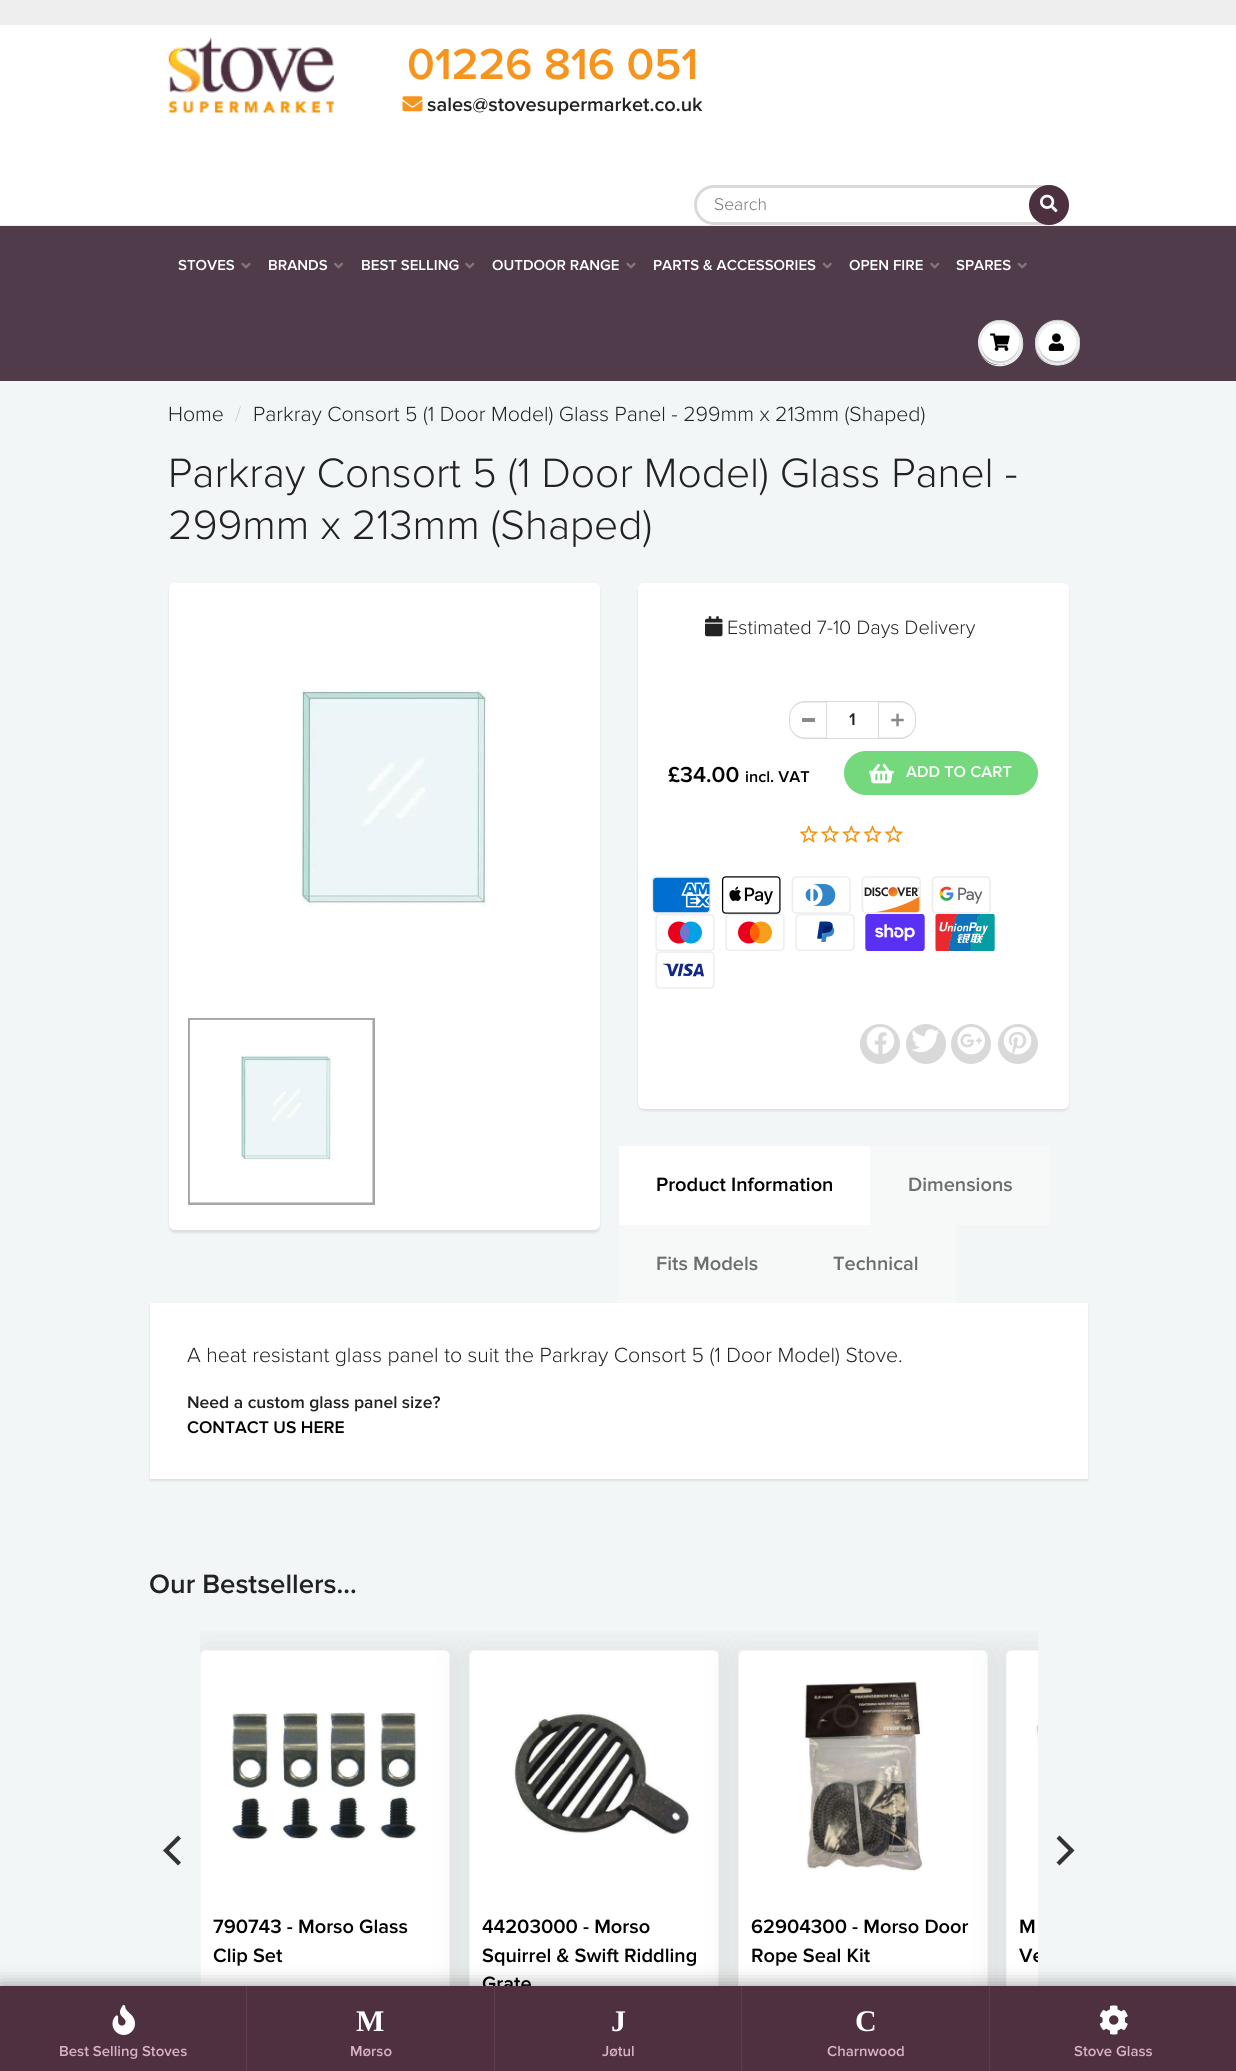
#include <cairo/cairo.h>
#include <math.h>
#include <stddef.h>


static void rounded_rect(cairo_t *cr, double x, double y, double w, double h, double r) {
  cairo_new_sub_path(cr);
  cairo_arc(cr, x + w - r, y + h - r, r, 0, M_PI / 2);
  cairo_arc(cr, x + r, y + h - r, r, M_PI / 2, M_PI);
  cairo_arc(cr, x + r, y + r, r, M_PI, 1.5 * M_PI);
  cairo_arc(cr, x + w - r, y + r, r, 1.5 * M_PI, 2 * M_PI);
  cairo_close_path(cr);
}

static void draw_shadow(cairo_t *cr, double x, double y, double w, double h, double r, double blur, double alpha) {
  cairo_push_group_with_content(cr, CAIRO_CONTENT_ALPHA);
  cairo_set_operator(cr, CAIRO_OPERATOR_SOURCE);
  for (int i = 15; i >= -15 && fmin(w, h) + blur * i / 3 > 0; i -= 2) {
    double e = blur * i / 6;
    cairo_set_source_rgba(cr, 0, 0, 0, alpha * erfc((i - 1) / 8.5) / 2);
    rounded_rect(cr, x - e, y - e, w + 2 * e, h + 2 * e, fmax(0, fmin(r + e + blur * .6, fmin(w, h) / 2 + e)));
    cairo_fill(cr);
  }
  cairo_pattern_t *soft = cairo_pop_group(cr);
  cairo_mask(cr, soft);
  cairo_pattern_destroy(soft);
}

static void draw_image(cairo_t *cr, const char *path, double x, double y, double w, double h) {
  cairo_surface_t *image = cairo_image_surface_create_from_png(path);
  cairo_save(cr);
  cairo_set_source_surface(cr, image, x, y);
  cairo_rectangle(cr, x, y, w, h);
  cairo_fill(cr);
  cairo_restore(cr);
  cairo_surface_destroy(image);
}

static void draw(cairo_t *cr) {
  cairo_set_source_rgb(cr, 1, 1, 1);
  cairo_paint(cr);
  cairo_set_source_rgb(cr, 238 / 255.0, 238 / 255.0, 238 / 255.0);
  cairo_rectangle(cr, 0, 0, 1236, 25);
  cairo_fill(cr);
  draw_image(cr, "images/1.png", 168, 37, 166, 76);
  draw_image(cr, "images/2.png", 402, 96, 21, 16);
  rounded_rect(cr, 695.5, 186.5, 372, 37, 18.5);
  cairo_set_source_rgb(cr, 217 / 255.0, 217 / 255.0, 217 / 255.0);
  cairo_set_line_width(cr, 3);
  cairo_stroke(cr);
  cairo_set_source_rgb(cr, 76 / 255.0, 48 / 255.0, 64 / 255.0);
  cairo_arc(cr, 1049, 205, 20, 0, 2 * M_PI);
  cairo_fill(cr);
  draw_image(cr, "images/3.png", 1040, 194, 18, 19);
  cairo_set_source_rgb(cr, 79 / 255.0, 59 / 255.0, 74 / 255.0);
  cairo_rectangle(cr, 0, 226, 1236, 155);
  cairo_fill(cr);
  cairo_set_source_rgb(cr, 243 / 255.0, 239 / 255.0, 239 / 255.0);
  cairo_rectangle(cr, 0, 225, 1236, 1);
  cairo_fill(cr);
  draw_image(cr, "images/4.png", 241, 262, 10, 7);
  draw_image(cr, "images/5.png", 334, 262, 9, 7);
  draw_image(cr, "images/6.png", 465, 262, 10, 7);
  draw_image(cr, "images/4.png", 626, 262, 10, 7);
  draw_image(cr, "images/7.png", 822, 262, 10, 7);
  draw_image(cr, "images/6.png", 930, 262, 10, 7);
  draw_image(cr, "images/7.png", 1017, 262, 10, 7);
  cairo_set_source_rgb(cr, 1, 1, 1);
  cairo_new_path(cr);
  cairo_move_to(cr, 980, 353);
  cairo_curve_to(cr, 993, 381, 1035, 360, 1020, 333);
  cairo_curve_to(cr, 1033, 359, 994, 379, 980, 353);
  cairo_close_path(cr);
  cairo_fill(cr);
  cairo_set_source_rgb(cr, 237 / 255.0, 239 / 255.0, 239 / 255.0);
  cairo_arc(cr, 1000.5, 342.5, 22.5, 0, 2 * M_PI);
  cairo_fill(cr);
  cairo_set_source_rgb(cr, 201 / 255.0, 203 / 255.0, 203 / 255.0);
  cairo_new_path(cr);
  cairo_move_to(cr, 1000, 321);
  cairo_curve_to(cr, 1018, 321, 1025, 338, 1021, 351);
  cairo_curve_to(cr, 1030, 329, 1002, 310, 985, 326);
  cairo_curve_to(cr, 989, 323, 994, 321, 1000, 321);
  cairo_close_path(cr);
  cairo_fill(cr);
  cairo_new_path(cr);
  cairo_move_to(cr, 981.5, 340);
  cairo_curve_to(cr, 980.5, 345, 981.5, 350.5, 984, 354.5);
  cairo_curve_to(cr, 996, 372, 1023, 360, 1018.5, 340);
  cairo_curve_to(cr, 1019, 344.5, 1018, 349, 1015.5, 353);
  cairo_curve_to(cr, 1004.5, 369.5, 979, 359.5, 981.5, 340);
  cairo_close_path(cr);
  cairo_fill(cr);
  cairo_set_source_rgb(cr, 1, 1, 1);
  rounded_rect(cr, 981, 324, 38, 37, 18.5);
  cairo_fill(cr);
  cairo_new_path(cr);
  cairo_move_to(cr, 1000, 325);
  cairo_curve_to(cr, 1014, 325, 1020, 337, 1018, 347);
  cairo_curve_to(cr, 1020, 342, 1019, 336, 1016, 332);
  cairo_curve_to(cr, 1004, 315, 977, 327, 982, 347);
  cairo_curve_to(cr, 980, 337, 986, 325, 1000, 325);
  cairo_close_path(cr);
  cairo_fill(cr);
  draw_image(cr, "images/8.png", 990, 333, 20, 18);
  cairo_new_path(cr);
  cairo_move_to(cr, 1035, 343);
  cairo_curve_to(cr, 1034, 373, 1081, 373, 1080, 343);
  cairo_curve_to(cr, 1079, 372, 1036, 372, 1035, 343);
  cairo_close_path(cr);
  cairo_fill(cr);
  cairo_set_source_rgb(cr, 237 / 255.0, 239 / 255.0, 239 / 255.0);
  cairo_arc(cr, 1057.5, 342.5, 22.5, 0, 2 * M_PI);
  cairo_fill(cr);
  cairo_set_source_rgb(cr, 201 / 255.0, 203 / 255.0, 203 / 255.0);
  cairo_new_path(cr);
  cairo_move_to(cr, 1058, 321);
  cairo_curve_to(cr, 1074, 321, 1081, 335, 1079, 348);
  cairo_curve_to(cr, 1081, 342, 1080, 335, 1076, 330);
  cairo_curve_to(cr, 1061, 307, 1027, 327, 1037, 351);
  cairo_curve_to(cr, 1033, 338, 1040, 321, 1058, 321);
  cairo_close_path(cr);
  cairo_fill(cr);
  cairo_new_path(cr);
  cairo_move_to(cr, 1039, 346);
  cairo_curve_to(cr, 1040.5, 368.5, 1074.5, 368.5, 1076, 346);
  cairo_curve_to(cr, 1072.5, 366, 1042.5, 366, 1039, 346);
  cairo_close_path(cr);
  cairo_fill(cr);
  cairo_set_source_rgb(cr, 1, 1, 1);
  cairo_arc(cr, 1057.5, 342.5, 18.5, 0, 2 * M_PI);
  cairo_fill(cr);
  cairo_new_path(cr);
  cairo_move_to(cr, 1058, 325);
  cairo_curve_to(cr, 1070, 325, 1076, 334, 1076, 343);
  cairo_curve_to(cr, 1076, 339, 1075, 335.5, 1073, 332);
  cairo_curve_to(cr, 1061, 315, 1034.5, 327.5, 1039.5, 347);
  cairo_curve_to(cr, 1038, 336.5, 1044, 325, 1058, 325);
  cairo_close_path(cr);
  cairo_fill(cr);
  draw_image(cr, "images/9.png", 1048, 333, 17, 18);
  cairo_set_source_rgb(cr, 243 / 255.0, 246 / 255.0, 246 / 255.0);
  cairo_rectangle(cr, 0, 381, 1236, 1605);
  cairo_fill(cr);
  cairo_set_source_rgb(cr, 11 / 255.0, 25 / 255.0, 28 / 255.0);
  draw_shadow(cr, 169, 585, 431, 648, 6, 1, 0.1);
  cairo_set_source_rgb(cr, 1, 1, 1);
  rounded_rect(cr, 169, 583, 431, 647, 6);
  cairo_fill(cr);
  draw_image(cr, "images/10.png", 301, 689, 188, 217);
  cairo_rectangle(cr, 189.5, 1019.5, 184, 184);
  cairo_set_source_rgb(cr, 165 / 255.0, 165 / 255.0, 165 / 255.0);
  cairo_stroke(cr);
  draw_image(cr, "images/11.png", 189, 1019, 184, 184);
  cairo_set_source_rgb(cr, 11 / 255.0, 25 / 255.0, 28 / 255.0);
  draw_shadow(cr, 638, 585, 431, 526, 6, 1, 0.1);
  cairo_set_source_rgb(cr, 1, 1, 1);
  rounded_rect(cr, 638, 583, 431, 526, 6);
  cairo_fill(cr);
  draw_image(cr, "images/12.png", 705, 616, 18, 21);
  cairo_set_source_rgb(cr, 137 / 255.0, 137 / 255.0, 137 / 255.0);
  cairo_rectangle(cr, 802, 718, 13, 4);
  cairo_fill(cr);
  cairo_set_source_rgb(cr, 215 / 255.0, 219 / 255.0, 219 / 255.0);
  cairo_set_fill_rule(cr, CAIRO_FILL_RULE_EVEN_ODD);
  cairo_new_path(cr);
  cairo_move_to(cr, 805, 701);
  cairo_line_to(cr, 826, 701);
  cairo_line_to(cr, 826, 739);
  cairo_line_to(cr, 805, 739);
  cairo_curve_to(cr, 796, 739, 789, 731.5, 789, 722.5);
  cairo_line_to(cr, 789, 717.5);
  cairo_curve_to(cr, 789, 708.5, 796, 701, 805, 701);
  cairo_close_path(cr);
  cairo_move_to(cr, 805, 702.5);
  cairo_line_to(cr, 826, 702.5);
  cairo_line_to(cr, 826, 737.5);
  cairo_line_to(cr, 805, 737.5);
  cairo_curve_to(cr, 796.5, 737.5, 790, 731, 790, 722.5);
  cairo_line_to(cr, 790, 717.5);
  cairo_curve_to(cr, 790, 709, 796.5, 702.5, 805, 702.5);
  cairo_close_path(cr);
  cairo_fill(cr);
  cairo_rectangle(cr, 826.5, 701.5, 52, 37);
  cairo_set_line_width(cr, 1);
  cairo_stroke(cr);
  draw_image(cr, "images/13.png", 891, 713, 13, 14);
  cairo_new_path(cr);
  cairo_move_to(cr, 879, 701);
  cairo_line_to(cr, 900, 701);
  cairo_curve_to(cr, 909, 701, 916, 708.5, 916, 717.5);
  cairo_line_to(cr, 916, 722.5);
  cairo_curve_to(cr, 916, 731.5, 909, 739, 900, 739);
  cairo_line_to(cr, 879, 739);
  cairo_close_path(cr);
  cairo_move_to(cr, 879, 702.5);
  cairo_line_to(cr, 900, 702.5);
  cairo_curve_to(cr, 908.5, 702.5, 915, 709, 915, 717.5);
  cairo_line_to(cr, 915, 722.5);
  cairo_curve_to(cr, 915, 731, 908.5, 737.5, 900, 737.5);
  cairo_line_to(cr, 879, 737.5);
  cairo_close_path(cr);
  cairo_fill(cr);
  cairo_set_source_rgb(cr, 115 / 255.0, 217 / 255.0, 124 / 255.0);
  rounded_rect(cr, 844, 751, 194, 44, 22);
  cairo_fill(cr);
  draw_image(cr, "images/14.png", 869, 763, 25, 21);
  draw_image(cr, "images/15.png", 799, 825, 19, 18);
  draw_image(cr, "images/16.png", 820, 825, 20, 18);
  draw_image(cr, "images/17.png", 842, 825, 19, 18);
  draw_image(cr, "images/18.png", 863, 825, 19, 18);
  draw_image(cr, "images/15.png", 884, 825, 19, 18);
  draw_image(cr, "images/19.png", 651, 876, 60, 38);
  draw_image(cr, "images/20.png", 721, 876, 60, 38);
  draw_image(cr, "images/21.png", 791, 876, 60, 38);
  draw_image(cr, "images/22.png", 861, 876, 60, 38);
  draw_image(cr, "images/23.png", 931, 876, 60, 38);
  draw_image(cr, "images/24.png", 655, 914, 60, 37);
  draw_image(cr, "images/25.png", 725, 914, 60, 37);
  draw_image(cr, "images/26.png", 795, 914, 60, 37);
  draw_image(cr, "images/27.png", 865, 914, 60, 37);
  draw_image(cr, "images/28.png", 935, 914, 60, 37);
  draw_image(cr, "images/29.png", 655, 951, 60, 38);
  cairo_set_source_rgb(cr, 217 / 255.0, 217 / 255.0, 217 / 255.0);
  cairo_arc(cr, 880, 1044, 20, 0, 2 * M_PI);
  cairo_fill(cr);
  draw_image(cr, "images/30.png", 866, 1027, 29, 27);
  cairo_arc(cr, 926, 1044, 20, 0, 2 * M_PI);
  cairo_fill(cr);
  draw_image(cr, "images/31.png", 911, 1029, 29, 24);
  cairo_arc(cr, 971, 1044, 20, 0, 2 * M_PI);
  cairo_fill(cr);
  draw_image(cr, "images/32.png", 957, 1027, 28, 28);
  cairo_arc(cr, 1018, 1044, 20, 0, 2 * M_PI);
  cairo_fill(cr);
  draw_image(cr, "images/33.png", 1003, 1027, 29, 28);
  cairo_set_source_rgb(cr, 1, 1, 1);
  cairo_rectangle(cr, 619, 1146, 251, 79);
  cairo_fill(cr);
  cairo_set_source_rgb(cr, 247 / 255.0, 249 / 255.0, 249 / 255.0);
  cairo_rectangle(cr, 870, 1146, 180, 79);
  cairo_fill(cr);
  cairo_set_source_rgb(cr, 11 / 255.0, 25 / 255.0, 28 / 255.0);
  draw_shadow(cr, 150, 1305, 938, 176, 0, 1, 0.1);
  cairo_set_source_rgb(cr, 247 / 255.0, 249 / 255.0, 249 / 255.0);
  cairo_rectangle(cr, 619, 1225, 337, 78);
  cairo_fill(cr);
  cairo_set_source_rgb(cr, 1, 1, 1);
  cairo_rectangle(cr, 150, 1303, 938, 176);
  cairo_fill(cr);
  cairo_save(cr);
  cairo_set_fill_rule(cr, CAIRO_FILL_RULE_WINDING);
  cairo_rectangle(cr, 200, 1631, 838, 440);
  cairo_clip(cr);
  cairo_set_source_rgb(cr, 0, 0, 0);
  draw_shadow(cr, 200, 1650, 250, 375, 6, 19, 0.1);
  cairo_restore(cr);
  cairo_set_source_rgb(cr, 51 / 255.0, 51 / 255.0, 51 / 255.0);
  cairo_set_fill_rule(cr, CAIRO_FILL_RULE_WINDING);
  cairo_new_path(cr);
  cairo_move_to(cr, 163, 1850.5);
  cairo_line_to(cr, 178, 1865.5);
  cairo_line_to(cr, 181, 1862.5);
  cairo_line_to(cr, 169, 1850.5);
  cairo_line_to(cr, 181, 1838.5);
  cairo_line_to(cr, 178, 1835.5);
  cairo_close_path(cr);
  cairo_fill(cr);
  cairo_set_source_rgb(cr, 1, 1, 1);
  rounded_rect(cr, 200, 1650, 250, 375, 6);
  cairo_fill(cr);
  rounded_rect(cr, 200.5, 1650.5, 249, 374, 5.5);
  cairo_set_source_rgba(cr, 172 / 255.0, 172 / 255.0, 172 / 255.0, 0.1);
  cairo_stroke(cr);
  draw_image(cr, "images/34.png", 231, 1712, 187, 128);
  cairo_save(cr);
  cairo_rectangle(cr, 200, 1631, 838, 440);
  cairo_clip(cr);
  cairo_set_source_rgb(cr, 0, 0, 0);
  draw_shadow(cr, 469, 1650, 250, 403, 6, 19, 0.1);
  cairo_restore(cr);
  cairo_set_source_rgb(cr, 1, 1, 1);
  rounded_rect(cr, 469, 1650, 250, 403, 6);
  cairo_fill(cr);
  rounded_rect(cr, 469.5, 1650.5, 249, 402, 5.5);
  cairo_set_source_rgba(cr, 172 / 255.0, 172 / 255.0, 172 / 255.0, 0.1);
  cairo_stroke(cr);
  draw_image(cr, "images/35.png", 513, 1712, 177, 123);
  cairo_save(cr);
  cairo_rectangle(cr, 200, 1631, 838, 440);
  cairo_clip(cr);
  cairo_set_source_rgb(cr, 0, 0, 0);
  draw_shadow(cr, 738, 1650, 250, 375, 6, 19, 0.1);
  cairo_restore(cr);
  cairo_set_source_rgb(cr, 1, 1, 1);
  rounded_rect(cr, 738, 1650, 250, 375, 6);
  cairo_fill(cr);
  rounded_rect(cr, 738.5, 1650.5, 249, 374, 5.5);
  cairo_set_source_rgba(cr, 172 / 255.0, 172 / 255.0, 172 / 255.0, 0.1);
  cairo_stroke(cr);
  cairo_save(cr);
  cairo_rectangle(cr, 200, 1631, 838, 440);
  cairo_clip(cr);
  cairo_set_source_rgb(cr, 0, 0, 0);
  draw_shadow(cr, 1006, 1650, 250, 375, 6, 19, 0.1);
  cairo_restore(cr);
  cairo_set_source_rgb(cr, 1, 1, 1);
  cairo_new_path(cr);
  cairo_move_to(cr, 1012, 1650);
  cairo_line_to(cr, 1038, 1650);
  cairo_line_to(cr, 1038, 2025);
  cairo_line_to(cr, 1012, 2025);
  cairo_curve_to(cr, 1008.5, 2025, 1006, 2022.5, 1006, 2019);
  cairo_line_to(cr, 1006, 1656);
  cairo_curve_to(cr, 1006, 1652.5, 1008.5, 1650, 1012, 1650);
  cairo_close_path(cr);
  cairo_fill(cr);
  cairo_save(cr);
  cairo_rectangle(cr, 200, 1631, 838, 440);
  cairo_clip(cr);
  rounded_rect(cr, 1006.5, 1650.5, 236, 374, 5.5);
  cairo_set_source_rgba(cr, 172 / 255.0, 172 / 255.0, 172 / 255.0, 0.1);
  cairo_stroke(cr);
  cairo_restore(cr);
  cairo_set_source_rgb(cr, 51 / 255.0, 51 / 255.0, 51 / 255.0);
  cairo_new_path(cr);
  cairo_move_to(cr, 1074.5, 1850.5);
  cairo_line_to(cr, 1059.5, 1835.5);
  cairo_line_to(cr, 1056.5, 1838.5);
  cairo_line_to(cr, 1068.5, 1850.5);
  cairo_line_to(cr, 1056.5, 1862.5);
  cairo_line_to(cr, 1059.5, 1865.5);
  cairo_close_path(cr);
  cairo_fill(cr);
  draw_image(cr, "images/36.png", 804, 1681, 120, 191);
  draw_image(cr, "images/37.png", 1035, 1724, 3, 24);
  cairo_set_source_rgb(cr, 0, 0, 0);
  draw_shadow(cr, 0, 1986, 1236, 85, 0, 9.5, 0.4);
  cairo_select_font_face(cr, "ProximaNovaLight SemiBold", CAIRO_FONT_SLANT_NORMAL, CAIRO_FONT_WEIGHT_NORMAL);
  cairo_set_font_size(cr, 45);
  cairo_set_source_rgb(cr, 247 / 255.0, 148 / 255.0, 29 / 255.0);
  cairo_move_to(cr, 407, 79);
  cairo_show_text(cr, "01226 816 051");
  cairo_set_font_size(cr, 20);
  cairo_set_source_rgb(cr, 34 / 255.0, 34 / 255.0, 34 / 255.0);
  cairo_move_to(cr, 427, 111);
  cairo_show_text(cr, "sales@stovesupermarket.co.uk");
  cairo_select_font_face(cr, "ProximaNovaLight Light", CAIRO_FONT_SLANT_NORMAL, CAIRO_FONT_WEIGHT_NORMAL);
  cairo_set_font_size(cr, 17.5);
  cairo_set_source_rgb(cr, 117 / 255.0, 117 / 255.0, 117 / 255.0);
  cairo_move_to(cr, 714, 210);
  cairo_show_text(cr, "Search");
  cairo_select_font_face(cr, "ProximaNovaLight SemiBold", CAIRO_FONT_SLANT_NORMAL, CAIRO_FONT_WEIGHT_NORMAL);
  cairo_set_font_size(cr, 15);
  cairo_set_source_rgb(cr, 1, 1, 1);
  cairo_move_to(cr, 178, 270);
  cairo_show_text(cr, "STOVES");
  cairo_move_to(cr, 268, 270);
  cairo_show_text(cr, "BRANDS");
  cairo_move_to(cr, 361, 270);
  cairo_show_text(cr, "BEST SELLING");
  cairo_move_to(cr, 492, 270);
  cairo_show_text(cr, "OUTDOOR RANGE");
  cairo_move_to(cr, 653, 270);
  cairo_show_text(cr, "PARTS & ACCESSORIES");
  cairo_move_to(cr, 849, 270);
  cairo_show_text(cr, "OPEN FIRE");
  cairo_move_to(cr, 956, 270);
  cairo_show_text(cr, "SPARES");
  cairo_select_font_face(cr, "ProximaNovaLight Light", CAIRO_FONT_SLANT_NORMAL, CAIRO_FONT_WEIGHT_NORMAL);
  cairo_set_font_size(cr, 21.25);
  cairo_set_source_rgb(cr, 34 / 255.0, 34 / 255.0, 34 / 255.0);
  cairo_move_to(cr, 168, 421);
  cairo_show_text(cr, "Home");
  cairo_set_source_rgb(cr, 204 / 255.0, 204 / 255.0, 204 / 255.0);
  cairo_move_to(cr, 235, 421);
  cairo_show_text(cr, "/");
  cairo_set_source_rgb(cr, 34 / 255.0, 34 / 255.0, 34 / 255.0);
  cairo_move_to(cr, 253, 421);
  cairo_show_text(cr, "Parkray Consort 5 (1 Door Model) Glass Panel - 299mm x 213mm (Shaped)");
  cairo_set_font_size(cr, 42.5);
  cairo_move_to(cr, 168, 487);
  cairo_show_text(cr, "Parkray Consort 5 (1 Door Model) Glass Panel -");
  cairo_move_to(cr, 168, 539);
  cairo_show_text(cr, "299mm x 213mm (Shaped)");
  cairo_set_font_size(cr, 20);
  cairo_move_to(cr, 727, 634);
  cairo_show_text(cr, "Estimated 7-10 Days Delivery");
  cairo_select_font_face(cr, "ProximaNovaLight SemiBold", CAIRO_FONT_SLANT_NORMAL, CAIRO_FONT_WEIGHT_NORMAL);
  cairo_set_font_size(cr, 17.5);
  cairo_move_to(cr, 849, 725);
  cairo_show_text(cr, "1");
  cairo_set_font_size(cr, 22.5);
  cairo_set_source_rgb(cr, 0, 0, 0);
  cairo_move_to(cr, 668, 782);
  cairo_show_text(cr, "£34.00");
  cairo_set_font_size(cr, 16.25);
  cairo_move_to(cr, 745, 782);
  cairo_show_text(cr, "incl. VAT");
  cairo_set_source_rgb(cr, 1, 1, 1);
  cairo_move_to(cr, 906, 777);
  cairo_show_text(cr, "ADD TO CART");
  cairo_set_font_size(cr, 20);
  cairo_set_source_rgb(cr, 0, 0, 0);
  cairo_move_to(cr, 656, 1191);
  cairo_show_text(cr, "Product Information");
  cairo_set_source_rgb(cr, 109 / 255.0, 109 / 255.0, 109 / 255.0);
  cairo_move_to(cr, 908, 1191);
  cairo_show_text(cr, "Dimensions");
  cairo_move_to(cr, 656, 1270);
  cairo_show_text(cr, "Fits Models");
  cairo_move_to(cr, 833, 1270);
  cairo_show_text(cr, "Technical");
  cairo_select_font_face(cr, "ProximaNovaLight Light", CAIRO_FONT_SLANT_NORMAL, CAIRO_FONT_WEIGHT_NORMAL);
  cairo_set_font_size(cr, 21.25);
  cairo_set_source_rgb(cr, 34 / 255.0, 34 / 255.0, 34 / 255.0);
  cairo_move_to(cr, 187, 1362);
  cairo_show_text(cr, "A heat resistant glass panel to suit the Parkray Consort 5 (1 Door Model) Stove.");
  cairo_select_font_face(cr, "ProximaNovaLight SemiBold", CAIRO_FONT_SLANT_NORMAL, CAIRO_FONT_WEIGHT_NORMAL);
  cairo_set_font_size(cr, 17.5);
  cairo_move_to(cr, 187, 1408);
  cairo_show_text(cr, "Need a custom glass panel size?");
  cairo_set_source_rgb(cr, 0, 0, 0);
  cairo_move_to(cr, 187, 1433);
  cairo_show_text(cr, "CONTACT US HERE");
  cairo_set_font_size(cr, 27.5);
  cairo_set_source_rgb(cr, 34 / 255.0, 34 / 255.0, 34 / 255.0);
  cairo_move_to(cr, 149, 1593);
  cairo_show_text(cr, "Our Bestsellers...");
  cairo_set_font_size(cr, 20);
  cairo_set_source_rgb(cr, 0, 0, 0);
  cairo_move_to(cr, 213, 1933);
  cairo_show_text(cr, "790743 - Morso Glass");
  cairo_move_to(cr, 213, 1962);
  cairo_show_text(cr, "Clip Set");
  cairo_move_to(cr, 482, 1933);
  cairo_show_text(cr, "44203000 - Morso");
  cairo_move_to(cr, 482, 1962);
  cairo_show_text(cr, "Squirrel & Swift Riddling");
  cairo_move_to(cr, 482, 1990);
  cairo_show_text(cr, "Grate");
  cairo_move_to(cr, 751, 1933);
  cairo_show_text(cr, "62904300 - Morso Door");
  cairo_move_to(cr, 751, 1962);
  cairo_show_text(cr, "Rope Seal Kit");
  cairo_move_to(cr, 1019, 1933);
  cairo_show_text(cr, "M");
  cairo_save(cr);
  cairo_rectangle(cr, 200, 1631, 838, 440);
  cairo_clip(cr);
  cairo_move_to(cr, 1019, 1962);
  cairo_show_text(cr, "Ve");
  cairo_restore(cr);
  cairo_set_source_rgb(cr, 78 / 255.0, 48 / 255.0, 64 / 255.0);
  cairo_rectangle(cr, 0, 1986, 1236, 85);
  cairo_fill(cr);
  cairo_set_source_rgb(cr, 95 / 255.0, 59 / 255.0, 80 / 255.0);
  cairo_rectangle(cr, 246, 1986, 1, 85);
  cairo_fill(cr);
  draw_image(cr, "images/38.png", 112, 2005, 23, 30);
  cairo_set_font_size(cr, 15);
  cairo_set_source_rgb(cr, 216 / 255.0, 176 / 255.0, 199 / 255.0);
  cairo_move_to(cr, 59, 2056);
  cairo_show_text(cr, "Best Selling Stoves");
  cairo_set_source_rgb(cr, 95 / 255.0, 59 / 255.0, 80 / 255.0);
  cairo_rectangle(cr, 494, 1986, 1, 85);
  cairo_fill(cr);
  cairo_select_font_face(cr, "Liberation Serif", CAIRO_FONT_SLANT_NORMAL, CAIRO_FONT_WEIGHT_BOLD);
  cairo_set_font_size(cr, 30);
  cairo_set_source_rgb(cr, 1, 1, 1);
  cairo_move_to(cr, 356, 2031);
  cairo_show_text(cr, "M");
  cairo_select_font_face(cr, "ProximaNovaLight SemiBold", CAIRO_FONT_SLANT_NORMAL, CAIRO_FONT_WEIGHT_NORMAL);
  cairo_set_font_size(cr, 15);
  cairo_set_source_rgb(cr, 216 / 255.0, 176 / 255.0, 199 / 255.0);
  cairo_move_to(cr, 350, 2056);
  cairo_show_text(cr, "Mørso");
  cairo_set_source_rgb(cr, 95 / 255.0, 59 / 255.0, 80 / 255.0);
  cairo_rectangle(cr, 741, 1986, 1, 85);
  cairo_fill(cr);
  cairo_select_font_face(cr, "Liberation Serif", CAIRO_FONT_SLANT_NORMAL, CAIRO_FONT_WEIGHT_BOLD);
  cairo_set_font_size(cr, 30);
  cairo_set_source_rgb(cr, 1, 1, 1);
  cairo_move_to(cr, 611, 2031);
  cairo_show_text(cr, "J");
  cairo_select_font_face(cr, "ProximaNovaLight SemiBold", CAIRO_FONT_SLANT_NORMAL, CAIRO_FONT_WEIGHT_NORMAL);
  cairo_set_font_size(cr, 15);
  cairo_set_source_rgb(cr, 216 / 255.0, 176 / 255.0, 199 / 255.0);
  cairo_move_to(cr, 602, 2056);
  cairo_show_text(cr, "Jøtul");
  cairo_set_source_rgb(cr, 95 / 255.0, 59 / 255.0, 80 / 255.0);
  cairo_rectangle(cr, 989, 1986, 1, 85);
  cairo_fill(cr);
  cairo_select_font_face(cr, "Liberation Serif", CAIRO_FONT_SLANT_NORMAL, CAIRO_FONT_WEIGHT_BOLD);
  cairo_set_font_size(cr, 30);
  cairo_set_source_rgb(cr, 1, 1, 1);
  cairo_move_to(cr, 855, 2031);
  cairo_show_text(cr, "C");
  cairo_select_font_face(cr, "ProximaNovaLight SemiBold", CAIRO_FONT_SLANT_NORMAL, CAIRO_FONT_WEIGHT_NORMAL);
  cairo_set_font_size(cr, 15);
  cairo_set_source_rgb(cr, 216 / 255.0, 176 / 255.0, 199 / 255.0);
  cairo_move_to(cr, 827, 2056);
  cairo_show_text(cr, "Charnwood");
  draw_image(cr, "images/39.png", 1099, 2005, 29, 30);
  cairo_move_to(cr, 1074, 2056);
  cairo_show_text(cr, "Stove Glass");
}

int main(void) {
  cairo_surface_t *surface = cairo_image_surface_create(CAIRO_FORMAT_RGB24, 1236, 2071);
  cairo_t *cr = cairo_create(surface);
  cairo_font_options_t *options = cairo_font_options_create();
  cairo_font_options_set_hint_metrics(options, CAIRO_HINT_METRICS_OFF);
  cairo_font_options_set_hint_style(options, CAIRO_HINT_STYLE_NONE);
  cairo_set_font_options(cr, options);
  cairo_set_miter_limit(cr, 4);
  draw(cr);
  cairo_surface_write_to_png(surface, "out.png");
  cairo_font_options_destroy(options);
  cairo_destroy(cr);
  cairo_surface_destroy(surface);
  return 0;
}
